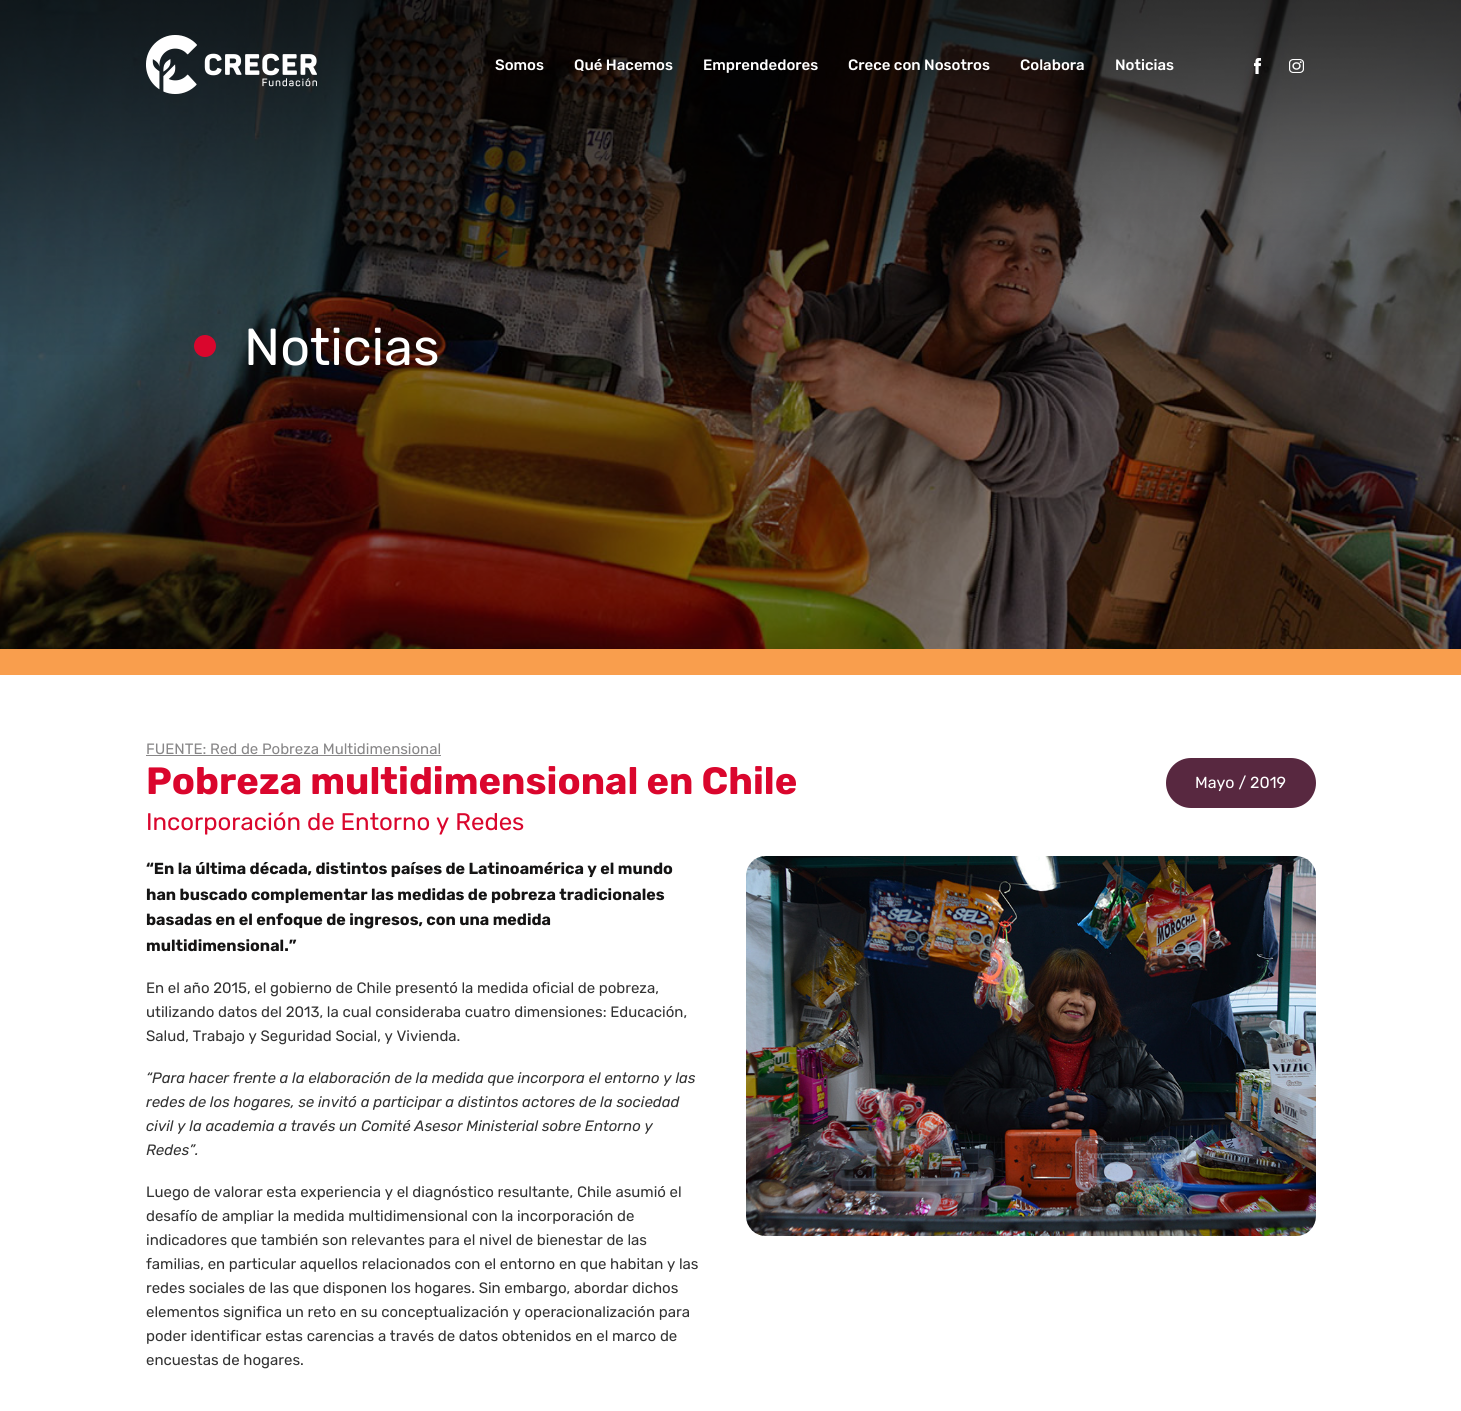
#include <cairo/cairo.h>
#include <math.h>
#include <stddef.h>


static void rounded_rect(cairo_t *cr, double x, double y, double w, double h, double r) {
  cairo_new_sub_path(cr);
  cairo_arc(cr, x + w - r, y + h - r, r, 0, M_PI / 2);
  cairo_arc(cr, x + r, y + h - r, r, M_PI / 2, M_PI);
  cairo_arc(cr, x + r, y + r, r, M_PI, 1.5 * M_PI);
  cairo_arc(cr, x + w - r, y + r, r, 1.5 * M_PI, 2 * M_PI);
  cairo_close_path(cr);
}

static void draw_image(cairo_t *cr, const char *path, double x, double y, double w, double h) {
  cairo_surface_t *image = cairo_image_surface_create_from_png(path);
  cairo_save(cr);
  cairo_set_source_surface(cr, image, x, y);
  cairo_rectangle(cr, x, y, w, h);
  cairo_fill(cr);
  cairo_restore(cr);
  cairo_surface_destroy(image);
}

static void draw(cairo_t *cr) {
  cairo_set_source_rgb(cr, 1, 1, 1);
  cairo_paint(cr);
  draw_image(cr, "images/4.png", 0, 0, 1461, 649);
  draw_image(cr, "images/5.png", 0, 0, 1461, 355);
  draw_image(cr, "images/1.png", 146, 35, 171, 59);
  draw_image(cr, "images/2.png", 1254, 58, 7, 16);
  draw_image(cr, "images/3.png", 1289, 59, 15, 14);
  cairo_set_source_rgb(cr, 249 / 255.0, 158 / 255.0, 77 / 255.0);
  cairo_rectangle(cr, 0, 649, 1461, 26);
  cairo_fill(cr);
  cairo_set_source_rgb(cr, 218 / 255.0, 6 / 255.0, 45 / 255.0);
  cairo_arc(cr, 205, 346, 11, 0, 2 * M_PI);
  cairo_fill(cr);
  cairo_set_source_rgb(cr, 136 / 255.0, 135 / 255.0, 136 / 255.0);
  cairo_rectangle(cr, 146, 755, 295, 1);
  cairo_fill(cr);
  cairo_set_source_rgb(cr, 88 / 255.0, 40 / 255.0, 64 / 255.0);
  rounded_rect(cr, 1166, 758, 150, 50, 25);
  cairo_fill(cr);
  draw_image(cr, "images/6.png", 746, 856, 570, 380);
  cairo_select_font_face(cr, "Rubik Medium", CAIRO_FONT_SLANT_NORMAL, CAIRO_FONT_WEIGHT_NORMAL);
  cairo_set_font_size(cr, 15);
  cairo_set_source_rgb(cr, 1, 1, 1);
  cairo_move_to(cr, 495, 70);
  cairo_show_text(cr, "Somos");
  cairo_move_to(cr, 574, 70);
  cairo_show_text(cr, "Qué Hacemos");
  cairo_move_to(cr, 703, 70);
  cairo_show_text(cr, "Emprendedores");
  cairo_move_to(cr, 848, 70);
  cairo_show_text(cr, "Crece con Nosotros");
  cairo_move_to(cr, 1020, 70);
  cairo_show_text(cr, "Colabora");
  cairo_move_to(cr, 1115, 70);
  cairo_show_text(cr, "Noticias");
  cairo_select_font_face(cr, "Rubik", CAIRO_FONT_SLANT_NORMAL, CAIRO_FONT_WEIGHT_NORMAL);
  cairo_set_font_size(cr, 52);
  cairo_move_to(cr, 244, 365);
  cairo_show_text(cr, "Noticias");
  cairo_set_font_size(cr, 15);
  cairo_set_source_rgb(cr, 136 / 255.0, 135 / 255.0, 136 / 255.0);
  cairo_move_to(cr, 146, 754);
  cairo_show_text(cr, "FUENTE: Red de Pobreza Multidimensional");
  cairo_select_font_face(cr, "Rubik", CAIRO_FONT_SLANT_NORMAL, CAIRO_FONT_WEIGHT_BOLD);
  cairo_set_font_size(cr, 38);
  cairo_set_source_rgb(cr, 218 / 255.0, 6 / 255.0, 45 / 255.0);
  cairo_move_to(cr, 146, 794);
  cairo_show_text(cr, "Pobreza multidimensional en Chile");
  cairo_select_font_face(cr, "Rubik", CAIRO_FONT_SLANT_NORMAL, CAIRO_FONT_WEIGHT_NORMAL);
  cairo_set_font_size(cr, 16);
  cairo_set_source_rgb(cr, 1, 1, 1);
  cairo_move_to(cr, 1195, 788);
  cairo_show_text(cr, "Mayo / 2019");
  cairo_set_font_size(cr, 24);
  cairo_set_source_rgb(cr, 218 / 255.0, 6 / 255.0, 45 / 255.0);
  cairo_move_to(cr, 146, 830);
  cairo_show_text(cr, "Incorporación de Entorno y Redes");
  cairo_select_font_face(cr, "Rubik", CAIRO_FONT_SLANT_NORMAL, CAIRO_FONT_WEIGHT_BOLD);
  cairo_set_font_size(cr, 16);
  cairo_set_source_rgb(cr, 21 / 255.0, 20 / 255.0, 20 / 255.0);
  cairo_move_to(cr, 146, 874);
  cairo_show_text(cr, "“En la última década, distintos países de Latinoamérica y el mundo");
  cairo_move_to(cr, 146, 900);
  cairo_show_text(cr, "han buscado complementar las medidas de pobreza tradicionales");
  cairo_move_to(cr, 146, 925);
  cairo_show_text(cr, "basadas en el enfoque de ingresos, con una medida");
  cairo_move_to(cr, 146, 951);
  cairo_show_text(cr, "multidimensional.”");
  cairo_select_font_face(cr, "Rubik", CAIRO_FONT_SLANT_NORMAL, CAIRO_FONT_WEIGHT_NORMAL);
  cairo_set_font_size(cr, 15);
  cairo_set_source_rgb(cr, 51 / 255.0, 51 / 255.0, 51 / 255.0);
  cairo_move_to(cr, 146, 993);
  cairo_show_text(cr, "En el año 2015, el gobierno de Chile presentó la medida oficial de pobreza,");
  cairo_move_to(cr, 146, 1017);
  cairo_show_text(cr, "utilizando datos del 2013, la cual consideraba cuatro dimensiones: Educación,");
  cairo_move_to(cr, 146, 1041);
  cairo_show_text(cr, "Salud, Trabajo y Seguridad Social, y Vivienda.");
  cairo_select_font_face(cr, "Rubik", CAIRO_FONT_SLANT_ITALIC, CAIRO_FONT_WEIGHT_NORMAL);
  cairo_move_to(cr, 146, 1083);
  cairo_show_text(cr, "“Para hacer frente a la elaboración de la medida que incorpora el entorno y las");
  cairo_move_to(cr, 146, 1107);
  cairo_show_text(cr, "redes de los hogares, se invitó a participar a distintos actores de la sociedad");
  cairo_move_to(cr, 146, 1131);
  cairo_show_text(cr, "civil y la academia a través un Comité Asesor Ministerial sobre Entorno y");
  cairo_move_to(cr, 146, 1155);
  cairo_show_text(cr, "Redes”.");
  cairo_select_font_face(cr, "Rubik", CAIRO_FONT_SLANT_NORMAL, CAIRO_FONT_WEIGHT_NORMAL);
  cairo_move_to(cr, 146, 1197);
  cairo_show_text(cr, "Luego de valorar esta experiencia y el diagnóstico resultante, Chile asumió el");
  cairo_move_to(cr, 146, 1221);
  cairo_show_text(cr, "desafío de ampliar la medida multidimensional con la incorporación de");
  cairo_move_to(cr, 146, 1245);
  cairo_show_text(cr, "indicadores que también son relevantes para el nivel de bienestar de las");
  cairo_move_to(cr, 146, 1269);
  cairo_show_text(cr, "familias, en particular aquellos relacionados con el entorno en que habitan y las");
  cairo_move_to(cr, 146, 1293);
  cairo_show_text(cr, "redes sociales de las que disponen los hogares. Sin embargo, abordar dichos");
  cairo_move_to(cr, 146, 1317);
  cairo_show_text(cr, "elementos significa un reto en su conceptualización y operacionalización para");
  cairo_move_to(cr, 146, 1341);
  cairo_show_text(cr, "poder identificar estas carencias a través de datos obtenidos en el marco de");
  cairo_move_to(cr, 146, 1365);
  cairo_show_text(cr, "encuestas de hogares.");
}

int main(void) {
  cairo_surface_t *surface = cairo_image_surface_create(CAIRO_FORMAT_RGB24, 1461, 1411);
  cairo_t *cr = cairo_create(surface);
  cairo_font_options_t *options = cairo_font_options_create();
  cairo_font_options_set_hint_metrics(options, CAIRO_HINT_METRICS_OFF);
  cairo_font_options_set_hint_style(options, CAIRO_HINT_STYLE_NONE);
  cairo_set_font_options(cr, options);
  cairo_set_miter_limit(cr, 4);
  draw(cr);
  cairo_surface_write_to_png(surface, "out.png");
  cairo_font_options_destroy(options);
  cairo_destroy(cr);
  cairo_surface_destroy(surface);
  return 0;
}
